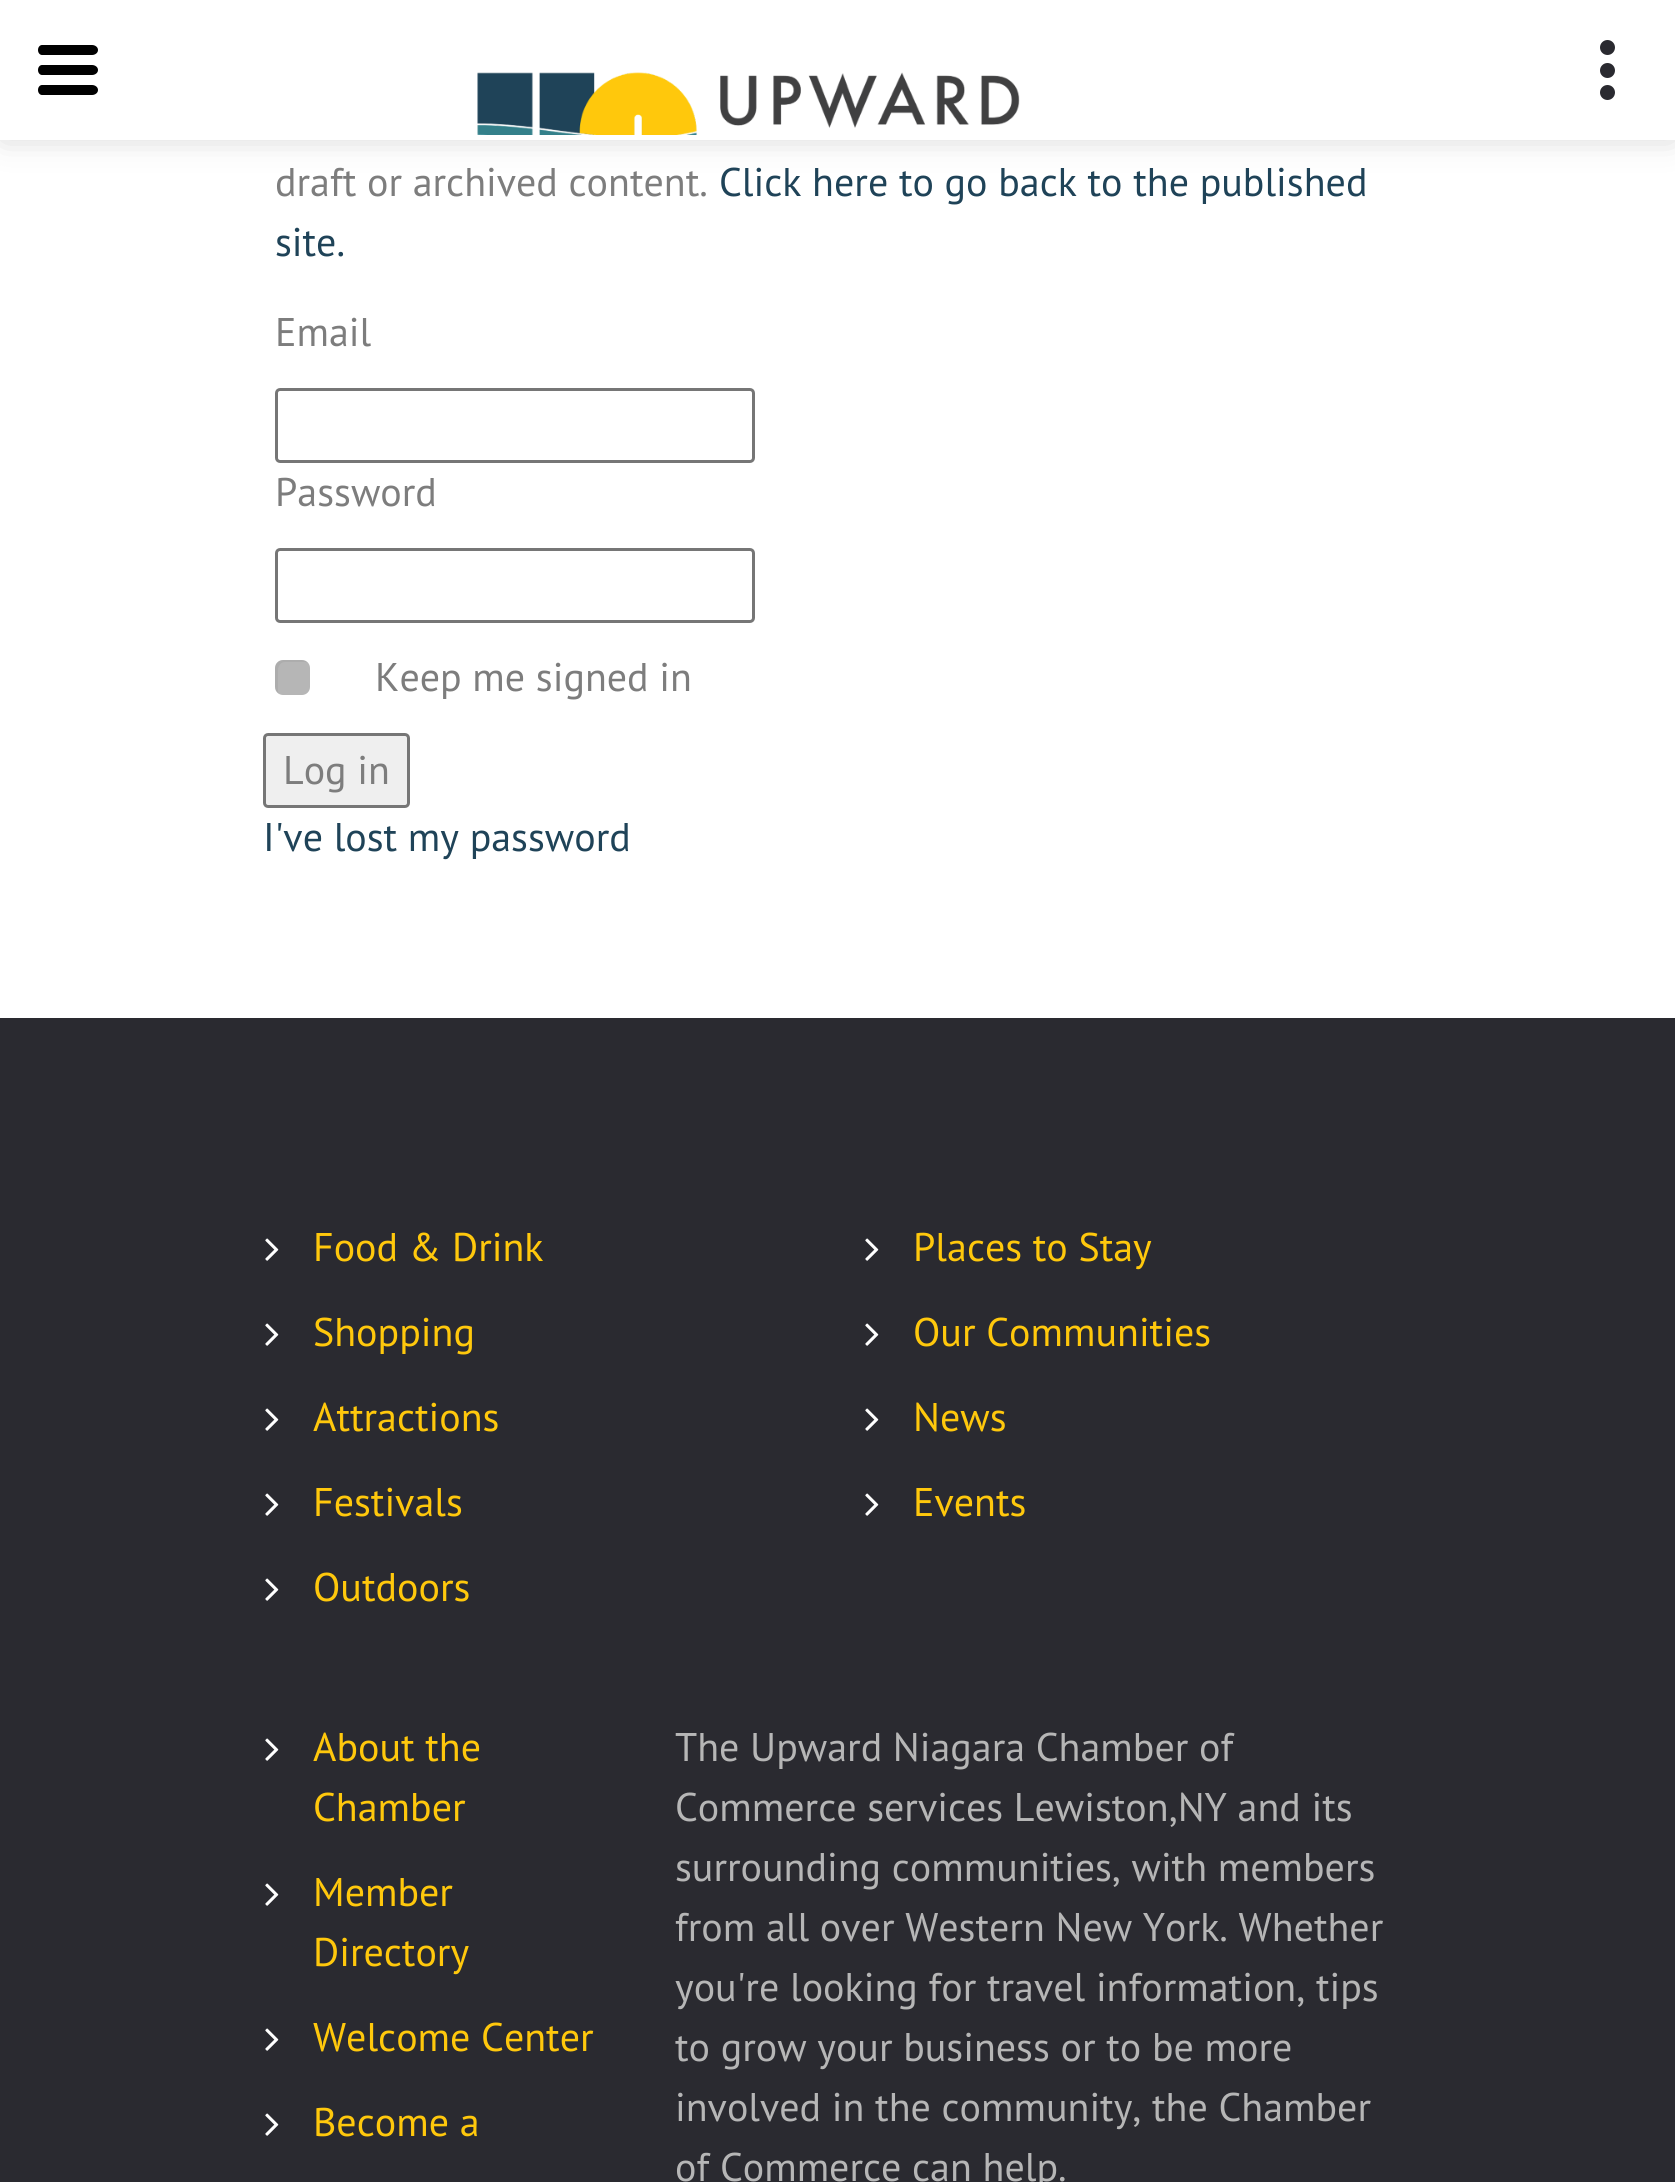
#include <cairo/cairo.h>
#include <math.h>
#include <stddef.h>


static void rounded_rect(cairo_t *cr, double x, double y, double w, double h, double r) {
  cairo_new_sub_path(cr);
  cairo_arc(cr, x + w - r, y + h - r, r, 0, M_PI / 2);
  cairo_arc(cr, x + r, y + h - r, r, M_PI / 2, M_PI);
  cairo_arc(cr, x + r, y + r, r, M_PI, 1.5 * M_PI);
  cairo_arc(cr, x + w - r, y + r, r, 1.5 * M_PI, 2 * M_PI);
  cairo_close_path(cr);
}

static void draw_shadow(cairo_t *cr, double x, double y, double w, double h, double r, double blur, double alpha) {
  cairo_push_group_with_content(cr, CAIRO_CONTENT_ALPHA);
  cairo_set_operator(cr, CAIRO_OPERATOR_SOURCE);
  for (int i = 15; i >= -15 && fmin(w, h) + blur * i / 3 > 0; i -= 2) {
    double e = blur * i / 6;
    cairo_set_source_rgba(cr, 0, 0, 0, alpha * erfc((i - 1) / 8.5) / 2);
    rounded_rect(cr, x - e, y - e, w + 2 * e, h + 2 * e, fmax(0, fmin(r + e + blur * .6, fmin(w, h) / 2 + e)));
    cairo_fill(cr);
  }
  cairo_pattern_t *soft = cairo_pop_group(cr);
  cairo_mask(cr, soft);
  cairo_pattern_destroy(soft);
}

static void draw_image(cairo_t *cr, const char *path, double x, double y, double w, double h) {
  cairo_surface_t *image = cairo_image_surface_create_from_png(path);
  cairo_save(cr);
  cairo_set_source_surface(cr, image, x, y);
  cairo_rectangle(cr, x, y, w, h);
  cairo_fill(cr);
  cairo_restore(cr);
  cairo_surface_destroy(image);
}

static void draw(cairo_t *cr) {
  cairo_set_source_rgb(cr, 1, 1, 1);
  cairo_paint(cr);
  cairo_set_source_rgb(cr, 0, 0, 0);
  draw_shadow(cr, 3, 3, 1670, 135, 0, 16, 0.17);
  cairo_set_source_rgb(cr, 1, 1, 1);
  cairo_rectangle(cr, 0, 0, 1675, 140);
  cairo_fill(cr);
  cairo_set_source_rgb(cr, 0, 0, 0);
  cairo_new_path(cr);
  cairo_move_to(cr, 92, 75);
  cairo_line_to(cr, 42, 75);
  cairo_curve_to(cr, 40, 75, 38, 73, 38, 70);
  cairo_curve_to(cr, 38, 67, 40, 65, 42, 65);
  cairo_line_to(cr, 92, 65);
  cairo_curve_to(cr, 95, 65, 98, 67, 98, 70);
  cairo_curve_to(cr, 98, 73, 95, 75, 92, 75);
  cairo_close_path(cr);
  cairo_move_to(cr, 92, 95);
  cairo_line_to(cr, 42, 95);
  cairo_curve_to(cr, 40, 95, 38, 93, 38, 90);
  cairo_curve_to(cr, 38, 87, 40, 85, 42, 85);
  cairo_line_to(cr, 92, 85);
  cairo_curve_to(cr, 95, 85, 98, 87, 98, 90);
  cairo_curve_to(cr, 98, 93, 95, 95, 92, 95);
  cairo_close_path(cr);
  cairo_move_to(cr, 92, 55);
  cairo_line_to(cr, 42, 55);
  cairo_curve_to(cr, 40, 55, 38, 53, 38, 50);
  cairo_curve_to(cr, 38, 47, 40, 45, 42, 45);
  cairo_line_to(cr, 92, 45);
  cairo_curve_to(cr, 95, 45, 98, 47, 98, 50);
  cairo_curve_to(cr, 98, 53, 95, 55, 92, 55);
  cairo_close_path(cr);
  cairo_fill(cr);
  draw_image(cr, "images/1.png", 477, 72, 543, 63);
  cairo_set_source_rgb(cr, 42 / 255.0, 42 / 255.0, 48 / 255.0);
  cairo_arc(cr, 1607.5, 70.5, 7.5, 0, 2 * M_PI);
  cairo_fill(cr);
  cairo_arc(cr, 1607.5, 47.5, 7.5, 0, 2 * M_PI);
  cairo_fill(cr);
  cairo_arc(cr, 1607.5, 92.5, 7.5, 0, 2 * M_PI);
  cairo_fill(cr);
  rounded_rect(cr, 276.5, 389.5, 477, 72, 3.5);
  cairo_set_source_rgb(cr, 118 / 255.0, 118 / 255.0, 118 / 255.0);
  cairo_set_line_width(cr, 3);
  cairo_stroke(cr);
  rounded_rect(cr, 276.5, 549.5, 477, 72, 3.5);
  cairo_stroke(cr);
  cairo_set_source_rgb(cr, 182 / 255.0, 182 / 255.0, 182 / 255.0);
  rounded_rect(cr, 275, 660, 35, 35, 8);
  cairo_fill(cr);
  cairo_set_source_rgba(cr, 0, 0, 0, 0.05);
  cairo_new_path(cr);
  cairo_move_to(cr, 285, 662);
  cairo_line_to(cr, 305, 662);
  cairo_curve_to(cr, 306, 662, 307, 662.5, 308, 663);
  cairo_curve_to(cr, 306.5, 661, 304.5, 660, 302, 660);
  cairo_line_to(cr, 283, 660);
  cairo_curve_to(cr, 278.5, 660, 275, 663.5, 275, 668);
  cairo_line_to(cr, 275, 687);
  cairo_curve_to(cr, 275, 690, 276.5, 692.5, 279, 694);
  cairo_curve_to(cr, 278.5, 692.5, 278, 691.5, 278, 690);
  cairo_line_to(cr, 278, 670);
  cairo_curve_to(cr, 278, 666, 281, 662, 285, 662);
  cairo_close_path(cr);
  cairo_fill(cr);
  cairo_set_source_rgb(cr, 239 / 255.0, 239 / 255.0, 239 / 255.0);
  rounded_rect(cr, 264.5, 734.5, 144, 72, 3.5);
  cairo_fill_preserve(cr);
  cairo_set_source_rgb(cr, 118 / 255.0, 118 / 255.0, 118 / 255.0);
  cairo_stroke(cr);
  cairo_set_source_rgb(cr, 42 / 255.0, 42 / 255.0, 48 / 255.0);
  cairo_rectangle(cr, 0, 1018, 1675, 1164);
  cairo_fill(cr);
  draw_image(cr, "images/2.png", 265, 1238, 14, 23);
  draw_image(cr, "images/2.png", 265, 1323, 14, 23);
  draw_image(cr, "images/2.png", 265, 1408, 14, 23);
  draw_image(cr, "images/2.png", 265, 1493, 14, 23);
  draw_image(cr, "images/2.png", 265, 1578, 14, 23);
  draw_image(cr, "images/2.png", 865, 1238, 14, 23);
  draw_image(cr, "images/2.png", 865, 1323, 14, 23);
  draw_image(cr, "images/2.png", 865, 1408, 14, 23);
  draw_image(cr, "images/2.png", 865, 1493, 14, 23);
  draw_image(cr, "images/2.png", 265, 1738, 14, 23);
  draw_image(cr, "images/2.png", 265, 1883, 14, 23);
  draw_image(cr, "images/2.png", 265, 2028, 14, 23);
  draw_image(cr, "images/2.png", 265, 2113, 14, 23);
  cairo_select_font_face(cr, "PT Sans", CAIRO_FONT_SLANT_NORMAL, CAIRO_FONT_WEIGHT_NORMAL);
  cairo_set_font_size(cr, 40);
  cairo_set_source_rgb(cr, 125 / 255.0, 125 / 255.0, 125 / 255.0);
  cairo_move_to(cr, 275, 196);
  cairo_show_text(cr, "draft or archived content.");
  cairo_set_source_rgb(cr, 31 / 255.0, 67 / 255.0, 88 / 255.0);
  cairo_move_to(cr, 719, 196);
  cairo_show_text(cr, "Click here to go back to the published");
  cairo_move_to(cr, 275, 256);
  cairo_show_text(cr, "site.");
  cairo_set_source_rgb(cr, 125 / 255.0, 125 / 255.0, 125 / 255.0);
  cairo_move_to(cr, 275, 346);
  cairo_show_text(cr, "Email");
  cairo_move_to(cr, 275, 506);
  cairo_show_text(cr, "Password");
  cairo_move_to(cr, 375, 691);
  cairo_show_text(cr, "Keep me signed in");
  cairo_move_to(cr, 283, 784);
  cairo_show_text(cr, "Log in");
  cairo_set_source_rgb(cr, 31 / 255.0, 67 / 255.0, 88 / 255.0);
  cairo_move_to(cr, 263, 851);
  cairo_show_text(cr, "I've lost my password");
  cairo_set_source_rgb(cr, 1, 200 / 255.0, 12 / 255.0);
  cairo_move_to(cr, 313, 1261);
  cairo_show_text(cr, "Food & Drink");
  cairo_move_to(cr, 313, 1346);
  cairo_show_text(cr, "Shopping");
  cairo_move_to(cr, 313, 1431);
  cairo_show_text(cr, "Attractions");
  cairo_move_to(cr, 313, 1516);
  cairo_show_text(cr, "Festivals");
  cairo_move_to(cr, 313, 1601);
  cairo_show_text(cr, "Outdoors");
  cairo_move_to(cr, 913, 1261);
  cairo_show_text(cr, "Places to Stay");
  cairo_move_to(cr, 913, 1346);
  cairo_show_text(cr, "Our Communities");
  cairo_move_to(cr, 913, 1431);
  cairo_show_text(cr, "News");
  cairo_move_to(cr, 913, 1516);
  cairo_show_text(cr, "Events");
  cairo_move_to(cr, 313, 1761);
  cairo_show_text(cr, "About the");
  cairo_move_to(cr, 313, 1821);
  cairo_show_text(cr, "Chamber");
  cairo_move_to(cr, 313, 1906);
  cairo_show_text(cr, "Member");
  cairo_move_to(cr, 313, 1966);
  cairo_show_text(cr, "Directory");
  cairo_move_to(cr, 313, 2051);
  cairo_show_text(cr, "Welcome Center");
  cairo_move_to(cr, 313, 2136);
  cairo_show_text(cr, "Become a");
  cairo_set_source_rgb(cr, 182 / 255.0, 182 / 255.0, 182 / 255.0);
  cairo_move_to(cr, 675, 1761);
  cairo_show_text(cr, "The Upward Niagara Chamber of");
  cairo_move_to(cr, 675, 1821);
  cairo_show_text(cr, "Commerce services Lewiston,NY and its");
  cairo_move_to(cr, 675, 1881);
  cairo_show_text(cr, "surrounding communities, with members");
  cairo_move_to(cr, 675, 1941);
  cairo_show_text(cr, "from all over Western New York. Whether");
  cairo_move_to(cr, 675, 2001);
  cairo_show_text(cr, "you're looking for travel information, tips");
  cairo_move_to(cr, 675, 2061);
  cairo_show_text(cr, "to grow your business or to be more");
  cairo_move_to(cr, 675, 2121);
  cairo_show_text(cr, "involved in the community, the Chamber");
  cairo_move_to(cr, 675, 2181);
  cairo_show_text(cr, "of Commerce can help.");
}

int main(void) {
  cairo_surface_t *surface = cairo_image_surface_create(CAIRO_FORMAT_RGB24, 1675, 2182);
  cairo_t *cr = cairo_create(surface);
  cairo_font_options_t *options = cairo_font_options_create();
  cairo_font_options_set_hint_metrics(options, CAIRO_HINT_METRICS_OFF);
  cairo_font_options_set_hint_style(options, CAIRO_HINT_STYLE_NONE);
  cairo_set_font_options(cr, options);
  cairo_set_miter_limit(cr, 4);
  draw(cr);
  cairo_surface_write_to_png(surface, "out.png");
  cairo_font_options_destroy(options);
  cairo_destroy(cr);
  cairo_surface_destroy(surface);
  return 0;
}
